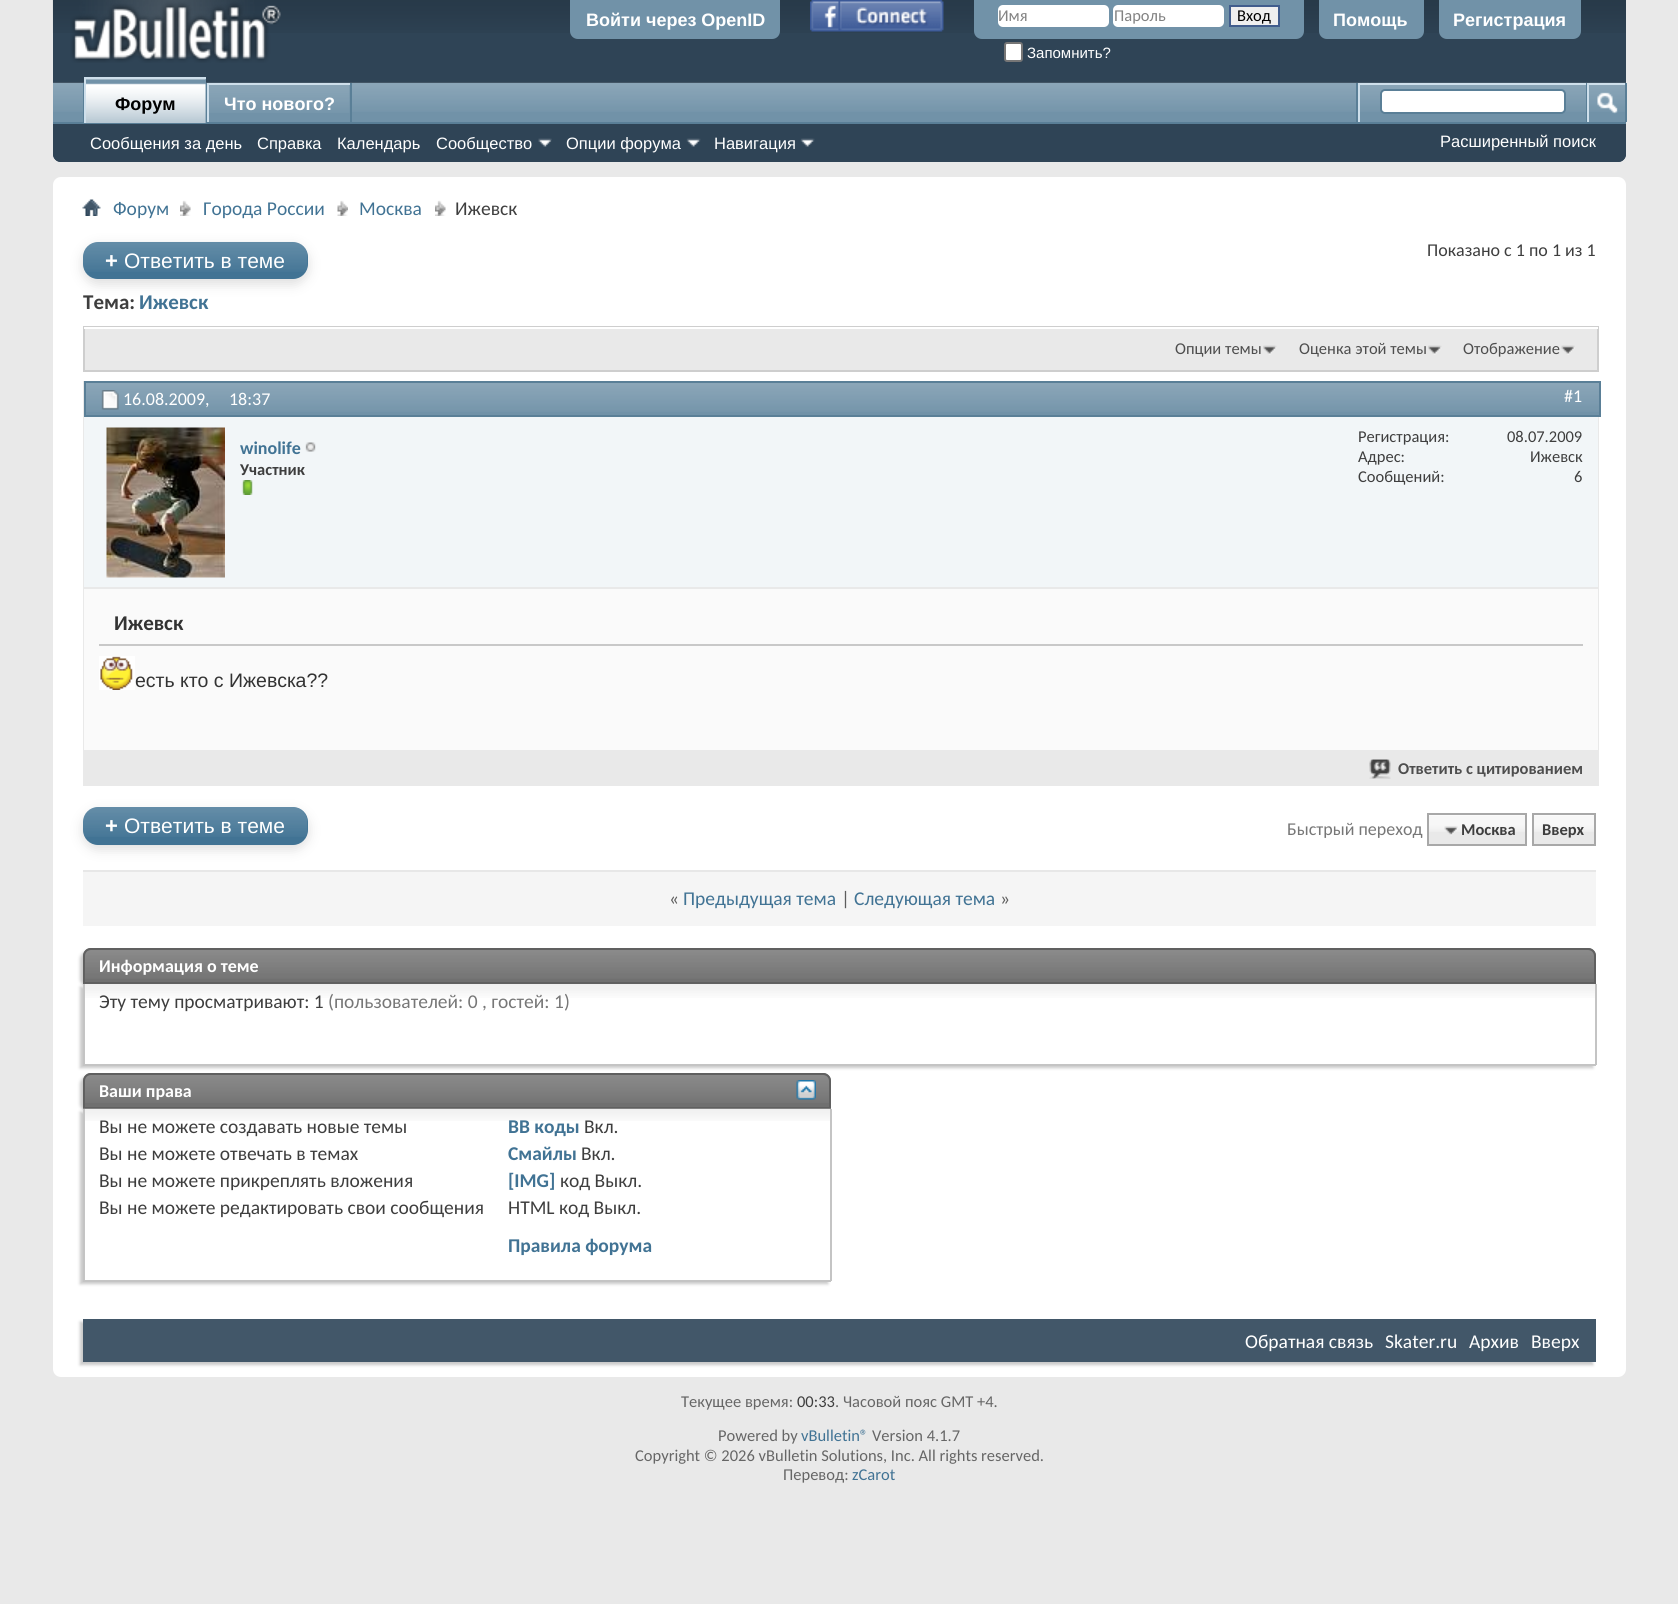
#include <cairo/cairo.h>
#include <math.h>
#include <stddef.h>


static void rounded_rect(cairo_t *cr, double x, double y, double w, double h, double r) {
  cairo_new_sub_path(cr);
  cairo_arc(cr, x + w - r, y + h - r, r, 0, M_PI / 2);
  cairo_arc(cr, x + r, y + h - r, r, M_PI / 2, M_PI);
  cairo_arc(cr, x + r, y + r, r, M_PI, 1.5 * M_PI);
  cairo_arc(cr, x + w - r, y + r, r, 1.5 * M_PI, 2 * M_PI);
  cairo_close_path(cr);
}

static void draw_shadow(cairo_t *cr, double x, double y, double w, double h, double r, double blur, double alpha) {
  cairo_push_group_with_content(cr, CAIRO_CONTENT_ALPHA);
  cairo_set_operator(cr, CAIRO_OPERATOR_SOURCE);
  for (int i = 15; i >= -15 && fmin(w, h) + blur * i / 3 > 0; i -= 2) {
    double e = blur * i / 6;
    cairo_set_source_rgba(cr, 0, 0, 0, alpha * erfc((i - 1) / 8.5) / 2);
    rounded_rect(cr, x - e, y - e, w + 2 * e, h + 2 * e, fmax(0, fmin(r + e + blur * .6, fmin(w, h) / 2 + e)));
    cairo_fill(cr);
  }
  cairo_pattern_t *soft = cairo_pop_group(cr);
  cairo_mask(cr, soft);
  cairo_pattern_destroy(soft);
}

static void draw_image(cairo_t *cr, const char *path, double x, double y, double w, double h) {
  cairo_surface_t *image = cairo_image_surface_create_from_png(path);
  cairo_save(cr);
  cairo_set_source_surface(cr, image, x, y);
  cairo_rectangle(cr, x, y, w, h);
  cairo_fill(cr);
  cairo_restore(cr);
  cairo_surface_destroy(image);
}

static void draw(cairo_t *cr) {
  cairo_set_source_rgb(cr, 233 / 255.0, 233 / 255.0, 233 / 255.0);
  cairo_paint(cr);
  cairo_set_source_rgb(cr, 47 / 255.0, 68 / 255.0, 86 / 255.0);
  cairo_new_path(cr);
  cairo_move_to(cr, 53, 0);
  cairo_line_to(cr, 1626, 0);
  cairo_line_to(cr, 1626, 154);
  cairo_curve_to(cr, 1626, 158.5, 1622.5, 162, 1618, 162);
  cairo_line_to(cr, 61, 162);
  cairo_curve_to(cr, 56.5, 162, 53, 158.5, 53, 154);
  cairo_close_path(cr);
  cairo_fill(cr);
  draw_image(cr, "images/1.png", 52, 0, 1574, 33);
  draw_image(cr, "images/2.png", 70, 0, 211, 63);
  cairo_set_source_rgb(cr, 113 / 255.0, 146 / 255.0, 168 / 255.0);
  cairo_new_path(cr);
  cairo_move_to(cr, 570, 0);
  cairo_line_to(cr, 780, 0);
  cairo_line_to(cr, 780, 31);
  cairo_curve_to(cr, 780, 35.5, 776.5, 39, 772, 39);
  cairo_line_to(cr, 578, 39);
  cairo_curve_to(cr, 573.5, 39, 570, 35.5, 570, 31);
  cairo_close_path(cr);
  cairo_fill(cr);
  draw_image(cr, "images/3.png", 810, 0, 134, 32);
  cairo_new_path(cr);
  cairo_move_to(cr, 974, 0);
  cairo_line_to(cr, 1304, 0);
  cairo_line_to(cr, 1304, 31);
  cairo_curve_to(cr, 1304, 35.5, 1300.5, 39, 1296, 39);
  cairo_line_to(cr, 982, 39);
  cairo_curve_to(cr, 977.5, 39, 974, 35.5, 974, 31);
  cairo_close_path(cr);
  cairo_fill(cr);
  cairo_set_source_rgb(cr, 1, 1, 1);
  rounded_rect(cr, 998, 5, 111, 22, 5);
  cairo_fill(cr);
  rounded_rect(cr, 1113, 5, 111, 22, 5);
  cairo_fill(cr);
  cairo_set_source_rgb(cr, 239 / 255.0, 239 / 255.0, 239 / 255.0);
  cairo_rectangle(cr, 1230, 6, 49, 20);
  cairo_fill_preserve(cr);
  cairo_set_source_rgb(cr, 65 / 255.0, 93 / 255.0, 141 / 255.0);
  cairo_stroke(cr);
  cairo_set_source_rgb(cr, 1, 1, 1);
  rounded_rect(cr, 1005, 43, 17, 18, 2);
  cairo_fill_preserve(cr);
  cairo_set_source_rgb(cr, 118 / 255.0, 118 / 255.0, 118 / 255.0);
  cairo_stroke(cr);
  cairo_set_source_rgb(cr, 113 / 255.0, 146 / 255.0, 168 / 255.0);
  cairo_new_path(cr);
  cairo_move_to(cr, 1319, 0);
  cairo_line_to(cr, 1424, 0);
  cairo_line_to(cr, 1424, 31);
  cairo_curve_to(cr, 1424, 35.5, 1420.5, 39, 1416, 39);
  cairo_line_to(cr, 1327, 39);
  cairo_curve_to(cr, 1322.5, 39, 1319, 35.5, 1319, 31);
  cairo_close_path(cr);
  cairo_fill(cr);
  cairo_new_path(cr);
  cairo_move_to(cr, 1439, 0);
  cairo_line_to(cr, 1581, 0);
  cairo_line_to(cr, 1581, 31);
  cairo_curve_to(cr, 1581, 35.5, 1577.5, 39, 1573, 39);
  cairo_line_to(cr, 1447, 39);
  cairo_curve_to(cr, 1442.5, 39, 1439, 35.5, 1439, 31);
  cairo_close_path(cr);
  cairo_fill(cr);
  cairo_set_source_rgb(cr, 47 / 255.0, 68 / 255.0, 86 / 255.0);
  cairo_new_path(cr);
  cairo_move_to(cr, 53, 83);
  cairo_line_to(cr, 1626, 83);
  cairo_line_to(cr, 1626, 154);
  cairo_curve_to(cr, 1626, 158.5, 1622.5, 162, 1618, 162);
  cairo_line_to(cr, 61, 162);
  cairo_curve_to(cr, 56.5, 162, 53, 158.5, 53, 154);
  cairo_close_path(cr);
  cairo_fill(cr);
  cairo_set_source_rgb(cr, 113 / 255.0, 146 / 255.0, 168 / 255.0);
  cairo_rectangle(cr, 53, 83, 1572, 39);
  cairo_fill(cr);
  draw_image(cr, "images/4.png", 53, 82, 1573, 30);
  cairo_set_source_rgb(cr, 90 / 255.0, 127 / 255.0, 151 / 255.0);
  cairo_rectangle(cr, 206, 83, 1, 39);
  cairo_fill(cr);
  cairo_rectangle(cr, 83, 83, 1, 39);
  cairo_fill(cr);
  cairo_rectangle(cr, 350, 83, 2, 40);
  cairo_fill(cr);
  cairo_set_source_rgb(cr, 206 / 255.0, 223 / 255.0, 235 / 255.0);
  cairo_rectangle(cr, 207, 83, 143, 2);
  cairo_fill(cr);
  cairo_rectangle(cr, 207, 83, 2, 40);
  cairo_fill(cr);
  cairo_set_source_rgb(cr, 90 / 255.0, 127 / 255.0, 151 / 255.0);
  cairo_rectangle(cr, 53, 122, 1573, 2);
  cairo_fill(cr);
  cairo_set_source_rgb(cr, 113 / 255.0, 146 / 255.0, 168 / 255.0);
  cairo_rectangle(cr, 86, 79, 120, 44);
  cairo_fill(cr);
  draw_image(cr, "images/5.png", 86, 79, 120, 44);
  cairo_set_source_rgb(cr, 206 / 255.0, 223 / 255.0, 235 / 255.0);
  cairo_rectangle(cr, 84, 77, 122, 2);
  cairo_fill(cr);
  cairo_rectangle(cr, 84, 77, 2, 46);
  cairo_fill(cr);
  draw_image(cr, "images/6.png", 538, 138, 14, 9);
  draw_image(cr, "images/7.png", 686, 138, 15, 9);
  draw_image(cr, "images/7.png", 800, 138, 15, 9);
  cairo_set_source_rgb(cr, 113 / 255.0, 146 / 255.0, 168 / 255.0);
  cairo_rectangle(cr, 209, 85, 141, 27);
  cairo_fill(cr);
  draw_image(cr, "images/8.png", 209, 85, 141, 28);
  cairo_set_source_rgb(cr, 90 / 255.0, 127 / 255.0, 151 / 255.0);
  cairo_rectangle(cr, 1356, 83, 2, 39);
  cairo_fill(cr);
  cairo_set_source_rgb(cr, 206 / 255.0, 223 / 255.0, 235 / 255.0);
  cairo_rectangle(cr, 1358, 83, 228, 2);
  cairo_fill(cr);
  cairo_rectangle(cr, 1358, 83, 2, 39);
  cairo_fill(cr);
  cairo_set_source_rgb(cr, 1, 1, 1);
  rounded_rect(cr, 1381, 90, 184, 23, 4);
  cairo_fill_preserve(cr);
  cairo_set_source_rgb(cr, 90 / 255.0, 127 / 255.0, 151 / 255.0);
  cairo_stroke(cr);
  cairo_rectangle(cr, 1625, 83, 2, 39);
  cairo_fill(cr);
  cairo_rectangle(cr, 1586, 83, 1, 39);
  cairo_fill(cr);
  cairo_set_source_rgb(cr, 206 / 255.0, 223 / 255.0, 235 / 255.0);
  cairo_rectangle(cr, 1587, 83, 38, 2);
  cairo_fill(cr);
  cairo_rectangle(cr, 1587, 83, 2, 39);
  cairo_fill(cr);
  draw_image(cr, "images/9.png", 1597, 92, 21, 22);
  cairo_set_source_rgb(cr, 1, 1, 1);
  rounded_rect(cr, 53, 177, 1573, 1200, 8);
  cairo_fill(cr);
  draw_image(cr, "images/10.png", 82, 199, 19, 17);
  draw_image(cr, "images/11.png", 180, 200, 11, 16);
  draw_image(cr, "images/12.png", 337, 200, 11, 16);
  draw_image(cr, "images/13.png", 435, 200, 11, 16);
  cairo_set_source_rgb(cr, 221 / 255.0, 221 / 255.0, 221 / 255.0);
  draw_shadow(cr, 83, 246, 225, 38, 15, 6, 1);
  cairo_set_source_rgb(cr, 65 / 255.0, 115 / 255.0, 148 / 255.0);
  rounded_rect(cr, 83, 242, 225, 37, 15);
  cairo_fill(cr);
  draw_image(cr, "images/14.png", 83, 242, 225, 30);
  cairo_set_source_rgb(cr, 233 / 255.0, 233 / 255.0, 233 / 255.0);
  cairo_rectangle(cr, 85, 329, 1512, 41);
  cairo_fill(cr);
  cairo_rectangle(cr, 84, 327, 1514, 44);
  cairo_set_source_rgb(cr, 206 / 255.0, 206 / 255.0, 206 / 255.0);
  cairo_stroke(cr);
  cairo_set_source_rgb(cr, 1, 1, 1);
  cairo_rectangle(cr, 84, 327, 1514, 2);
  cairo_fill(cr);
  draw_image(cr, "images/15.png", 1263, 345, 14, 10);
  draw_image(cr, "images/16.png", 1428, 345, 14, 10);
  draw_image(cr, "images/17.png", 1561, 345, 14, 10);
  cairo_rectangle(cr, 84, 382, 1514, 403);
  cairo_set_source_rgb(cr, 233 / 255.0, 233 / 255.0, 233 / 255.0);
  cairo_stroke(cr);
  cairo_set_source_rgb(cr, 113 / 255.0, 146 / 255.0, 168 / 255.0);
  cairo_rectangle(cr, 86, 383, 1513, 32);
  cairo_fill(cr);
  draw_image(cr, "images/18.png", 86, 383, 1513, 29);
  cairo_rectangle(cr, 85, 382, 1515, 34);
  cairo_set_source_rgb(cr, 90 / 255.0, 127 / 255.0, 151 / 255.0);
  cairo_stroke(cr);
  draw_image(cr, "images/19.png", 101, 390, 18, 20);
  cairo_set_source_rgb(cr, 242 / 255.0, 246 / 255.0, 248 / 255.0);
  cairo_rectangle(cr, 84, 417, 1514, 170);
  cairo_fill(cr);
  cairo_set_source_rgb(cr, 233 / 255.0, 233 / 255.0, 233 / 255.0);
  cairo_rectangle(cr, 84, 587, 1514, 2);
  cairo_fill(cr);
  draw_image(cr, "images/20.png", 106, 427, 119, 151);
  draw_image(cr, "images/21.png", 305, 442, 11, 10);
  draw_image(cr, "images/22.png", 241, 480, 12, 15);
  cairo_set_source_rgb(cr, 250 / 255.0, 250 / 255.0, 250 / 255.0);
  cairo_rectangle(cr, 84, 589, 1514, 161);
  cairo_fill(cr);
  cairo_set_source_rgb(cr, 200 / 255.0, 200 / 255.0, 200 / 255.0);
  cairo_rectangle(cr, 99, 644, 1484, 2);
  cairo_fill(cr);
  draw_image(cr, "images/23.png", 99, 656, 36, 34);
  cairo_set_source_rgb(cr, 233 / 255.0, 233 / 255.0, 233 / 255.0);
  cairo_rectangle(cr, 85, 750, 1512, 34);
  cairo_fill(cr);
  draw_image(cr, "images/24.png", 1369, 759, 22, 20);
  cairo_set_source_rgb(cr, 221 / 255.0, 221 / 255.0, 221 / 255.0);
  draw_shadow(cr, 83, 812, 225, 37, 15, 6, 1);
  cairo_set_source_rgb(cr, 65 / 255.0, 115 / 255.0, 148 / 255.0);
  rounded_rect(cr, 83, 807, 225, 38, 15);
  cairo_fill(cr);
  draw_image(cr, "images/25.png", 83, 807, 225, 30);
  cairo_set_source_rgb(cr, 233 / 255.0, 233 / 255.0, 233 / 255.0);
  cairo_rectangle(cr, 1429, 815, 96, 29);
  cairo_fill(cr);
  draw_image(cr, "images/26.png", 1429, 815, 96, 17);
  cairo_rectangle(cr, 1534, 815, 60, 29);
  cairo_fill(cr);
  draw_image(cr, "images/27.png", 1534, 815, 60, 17);
  cairo_rectangle(cr, 1428, 814, 98, 31);
  cairo_set_source_rgb(cr, 168 / 255.0, 168 / 255.0, 168 / 255.0);
  cairo_stroke(cr);
  draw_image(cr, "images/28.png", 1444, 826, 14, 10);
  cairo_rectangle(cr, 1533, 814, 62, 31);
  cairo_stroke(cr);
  cairo_set_source_rgb(cr, 245 / 255.0, 245 / 255.0, 245 / 255.0);
  cairo_rectangle(cr, 83, 872, 1513, 54);
  cairo_fill(cr);
  cairo_set_source_rgb(cr, 231 / 255.0, 231 / 255.0, 231 / 255.0);
  cairo_rectangle(cr, 83, 870, 1513, 2);
  cairo_fill(cr);
  cairo_set_source_rgb(cr, 200 / 255.0, 200 / 255.0, 200 / 255.0);
  draw_shadow(cr, 80, 951, 1513, 36, 8, 1.5, 1);
  cairo_set_source_rgb(cr, 112 / 255.0, 112 / 255.0, 112 / 255.0);
  cairo_new_path(cr);
  cairo_move_to(cr, 91, 948);
  cairo_line_to(cr, 1588, 948);
  cairo_curve_to(cr, 1592.5, 948, 1596, 951.5, 1596, 956);
  cairo_line_to(cr, 1596, 984);
  cairo_line_to(cr, 83, 984);
  cairo_line_to(cr, 83, 956);
  cairo_curve_to(cr, 83, 951.5, 86.5, 948, 91, 948);
  cairo_close_path(cr);
  cairo_fill(cr);
  draw_image(cr, "images/29.png", 83, 949, 1513, 30);
  cairo_new_path(cr);
  cairo_move_to(cr, 91, 949);
  cairo_line_to(cr, 1588, 949);
  cairo_curve_to(cr, 1592, 949, 1595, 952, 1595, 956);
  cairo_line_to(cr, 1595, 983);
  cairo_line_to(cr, 84, 983);
  cairo_line_to(cr, 84, 956);
  cairo_curve_to(cr, 84, 952, 87, 949, 91, 949);
  cairo_close_path(cr);
  cairo_set_source_rgb(cr, 96 / 255.0, 96 / 255.0, 96 / 255.0);
  cairo_stroke(cr);
  cairo_set_source_rgb(cr, 200 / 255.0, 200 / 255.0, 200 / 255.0);
  draw_shadow(cr, 80, 987, 1513, 81, 0, 1.5, 1);
  cairo_set_source_rgb(cr, 1, 1, 1);
  cairo_rectangle(cr, 85, 984, 1510, 80);
  cairo_fill(cr);
  draw_image(cr, "images/30.png", 85, 984, 1510, 14);
  cairo_set_source_rgb(cr, 196 / 255.0, 196 / 255.0, 196 / 255.0);
  cairo_rectangle(cr, 1595, 984, 2, 81);
  cairo_fill(cr);
  cairo_rectangle(cr, 83, 1064, 1513, 2);
  cairo_fill(cr);
  cairo_rectangle(cr, 83, 984, 2, 81);
  cairo_fill(cr);
  cairo_set_source_rgb(cr, 200 / 255.0, 200 / 255.0, 200 / 255.0);
  draw_shadow(cr, 80, 1076, 748, 36, 8, 1.5, 1);
  cairo_set_source_rgb(cr, 112 / 255.0, 112 / 255.0, 112 / 255.0);
  cairo_new_path(cr);
  cairo_move_to(cr, 91, 1073);
  cairo_line_to(cr, 823, 1073);
  cairo_curve_to(cr, 827.5, 1073, 831, 1076.5, 831, 1081);
  cairo_line_to(cr, 831, 1109);
  cairo_line_to(cr, 83, 1109);
  cairo_line_to(cr, 83, 1081);
  cairo_curve_to(cr, 83, 1076.5, 86.5, 1073, 91, 1073);
  cairo_close_path(cr);
  cairo_fill(cr);
  draw_image(cr, "images/31.png", 83, 1074, 748, 29);
  cairo_new_path(cr);
  cairo_move_to(cr, 91, 1074);
  cairo_line_to(cr, 823, 1074);
  cairo_curve_to(cr, 827, 1074, 830, 1077, 830, 1081);
  cairo_line_to(cr, 830, 1108);
  cairo_line_to(cr, 84, 1108);
  cairo_line_to(cr, 84, 1081);
  cairo_curve_to(cr, 84, 1077, 87, 1074, 91, 1074);
  cairo_close_path(cr);
  cairo_set_source_rgb(cr, 96 / 255.0, 96 / 255.0, 96 / 255.0);
  cairo_stroke(cr);
  draw_image(cr, "images/32.png", 796, 1080, 20, 20);
  cairo_set_source_rgb(cr, 200 / 255.0, 200 / 255.0, 200 / 255.0);
  draw_shadow(cr, 80, 1112, 748, 172, 0, 1.5, 1);
  cairo_set_source_rgb(cr, 1, 1, 1);
  cairo_rectangle(cr, 85, 1109, 745, 171);
  cairo_fill(cr);
  draw_image(cr, "images/33.png", 83, 1108, 748, 13);
  cairo_set_source_rgb(cr, 196 / 255.0, 196 / 255.0, 196 / 255.0);
  cairo_rectangle(cr, 830, 1109, 2, 172);
  cairo_fill(cr);
  cairo_rectangle(cr, 83, 1280, 748, 2);
  cairo_fill(cr);
  cairo_rectangle(cr, 83, 1109, 2, 172);
  cairo_fill(cr);
  cairo_set_source_rgb(cr, 200 / 255.0, 200 / 255.0, 200 / 255.0);
  draw_shadow(cr, 80, 1322, 1513, 43, 0, 1.5, 1);
  cairo_set_source_rgb(cr, 66 / 255.0, 87 / 255.0, 105 / 255.0);
  cairo_rectangle(cr, 83, 1319, 1513, 43);
  cairo_fill(cr);
  cairo_select_font_face(cr, "Liberation Sans", CAIRO_FONT_SLANT_NORMAL, CAIRO_FONT_WEIGHT_BOLD);
  cairo_set_font_size(cr, 18);
  cairo_set_source_rgb(cr, 1, 1, 1);
  cairo_move_to(cr, 586, 26);
  cairo_show_text(cr, "Войти через OpenID");
  cairo_select_font_face(cr, "Carlito", CAIRO_FONT_SLANT_NORMAL, CAIRO_FONT_WEIGHT_NORMAL);
  cairo_set_font_size(cr, 16.5);
  cairo_set_source_rgb(cr, 130 / 255.0, 130 / 255.0, 130 / 255.0);
  cairo_move_to(cr, 998, 21);
  cairo_show_text(cr, "Имя");
  cairo_move_to(cr, 1114, 21);
  cairo_show_text(cr, "Пароль");
  cairo_set_source_rgb(cr, 0, 0, 0);
  cairo_move_to(cr, 1237, 21);
  cairo_show_text(cr, "Вход");
  cairo_select_font_face(cr, "Liberation Sans", CAIRO_FONT_SLANT_NORMAL, CAIRO_FONT_WEIGHT_NORMAL);
  cairo_set_font_size(cr, 15);
  cairo_set_source_rgb(cr, 1, 1, 1);
  cairo_move_to(cr, 1027, 58);
  cairo_show_text(cr, "Запомнить?");
  cairo_select_font_face(cr, "Liberation Sans", CAIRO_FONT_SLANT_NORMAL, CAIRO_FONT_WEIGHT_BOLD);
  cairo_set_font_size(cr, 18);
  cairo_move_to(cr, 1333, 26);
  cairo_show_text(cr, "Помощь");
  cairo_move_to(cr, 1453, 26);
  cairo_show_text(cr, "Регистрация");
  cairo_set_source_rgb(cr, 0, 0, 0);
  cairo_move_to(cr, 115, 110);
  cairo_show_text(cr, "Форум");
  cairo_select_font_face(cr, "Liberation Sans", CAIRO_FONT_SLANT_NORMAL, CAIRO_FONT_WEIGHT_NORMAL);
  cairo_set_font_size(cr, 16.5);
  cairo_set_source_rgb(cr, 1, 1, 1);
  cairo_move_to(cr, 90, 149);
  cairo_show_text(cr, "Сообщения за день");
  cairo_move_to(cr, 257, 149);
  cairo_show_text(cr, "Справка");
  cairo_move_to(cr, 337, 149);
  cairo_show_text(cr, "Календарь");
  cairo_move_to(cr, 436, 149);
  cairo_show_text(cr, "Сообщество");
  cairo_move_to(cr, 566, 149);
  cairo_show_text(cr, "Опции форума");
  cairo_move_to(cr, 714, 149);
  cairo_show_text(cr, "Навигация");
  cairo_select_font_face(cr, "Liberation Sans", CAIRO_FONT_SLANT_NORMAL, CAIRO_FONT_WEIGHT_BOLD);
  cairo_set_font_size(cr, 18);
  cairo_move_to(cr, 224, 110);
  cairo_show_text(cr, "Что нового?");
  cairo_select_font_face(cr, "Liberation Sans", CAIRO_FONT_SLANT_NORMAL, CAIRO_FONT_WEIGHT_NORMAL);
  cairo_set_font_size(cr, 16.5);
  cairo_move_to(cr, 1440, 147);
  cairo_show_text(cr, "Расширенный поиск");
  cairo_select_font_face(cr, "Carlito", CAIRO_FONT_SLANT_NORMAL, CAIRO_FONT_WEIGHT_NORMAL);
  cairo_set_font_size(cr, 19.5);
  cairo_set_source_rgb(cr, 65 / 255.0, 115 / 255.0, 148 / 255.0);
  cairo_move_to(cr, 113, 215);
  cairo_show_text(cr, "Форум");
  cairo_move_to(cr, 203, 215);
  cairo_show_text(cr, "Города России");
  cairo_move_to(cr, 359, 215);
  cairo_show_text(cr, "Москва");
  cairo_set_source_rgb(cr, 62 / 255.0, 62 / 255.0, 62 / 255.0);
  cairo_move_to(cr, 455, 215);
  cairo_show_text(cr, "Ижевск");
  cairo_set_font_size(cr, 18);
  cairo_move_to(cr, 1427, 256);
  cairo_show_text(cr, "Показано с 1 по 1 из 1");
  cairo_select_font_face(cr, "Liberation Sans", CAIRO_FONT_SLANT_NORMAL, CAIRO_FONT_WEIGHT_BOLD);
  cairo_set_font_size(cr, 22);
  cairo_set_source_rgb(cr, 1, 1, 1);
  cairo_move_to(cr, 105, 268);
  cairo_show_text(cr, "+");
  cairo_select_font_face(cr, "Liberation Sans", CAIRO_FONT_SLANT_NORMAL, CAIRO_FONT_WEIGHT_NORMAL);
  cairo_set_font_size(cr, 21);
  cairo_move_to(cr, 124, 268);
  cairo_show_text(cr, "Ответить в теме");
  cairo_select_font_face(cr, "Carlito", CAIRO_FONT_SLANT_NORMAL, CAIRO_FONT_WEIGHT_BOLD);
  cairo_set_source_rgb(cr, 62 / 255.0, 62 / 255.0, 62 / 255.0);
  cairo_move_to(cr, 83, 309);
  cairo_show_text(cr, "Тема:");
  cairo_set_source_rgb(cr, 65 / 255.0, 115 / 255.0, 148 / 255.0);
  cairo_move_to(cr, 139, 309);
  cairo_show_text(cr, "Ижевск");
  cairo_select_font_face(cr, "Carlito", CAIRO_FONT_SLANT_NORMAL, CAIRO_FONT_WEIGHT_NORMAL);
  cairo_set_font_size(cr, 16.5);
  cairo_set_source_rgb(cr, 78 / 255.0, 78 / 255.0, 78 / 255.0);
  cairo_move_to(cr, 1175, 354);
  cairo_show_text(cr, "Опции темы");
  cairo_move_to(cr, 1299, 354);
  cairo_show_text(cr, "Оценка этой темы");
  cairo_move_to(cr, 1463, 354);
  cairo_show_text(cr, "Отображение");
  cairo_set_font_size(cr, 18);
  cairo_set_source_rgb(cr, 1, 1, 1);
  cairo_move_to(cr, 123, 405);
  cairo_show_text(cr, "16.08.2009,");
  cairo_move_to(cr, 229, 405);
  cairo_show_text(cr, "18:37");
  cairo_move_to(cr, 1564, 402);
  cairo_show_text(cr, "#1");
  cairo_select_font_face(cr, "Carlito", CAIRO_FONT_SLANT_NORMAL, CAIRO_FONT_WEIGHT_BOLD);
  cairo_set_source_rgb(cr, 65 / 255.0, 115 / 255.0, 148 / 255.0);
  cairo_move_to(cr, 240, 454);
  cairo_show_text(cr, "winolife");
  cairo_set_font_size(cr, 16.5);
  cairo_set_source_rgb(cr, 62 / 255.0, 62 / 255.0, 62 / 255.0);
  cairo_move_to(cr, 240, 475);
  cairo_show_text(cr, "Участник");
  cairo_select_font_face(cr, "Carlito", CAIRO_FONT_SLANT_NORMAL, CAIRO_FONT_WEIGHT_NORMAL);
  cairo_move_to(cr, 1358, 442);
  cairo_show_text(cr, "Регистрация:");
  cairo_move_to(cr, 1507, 442);
  cairo_show_text(cr, "08.07.2009");
  cairo_move_to(cr, 1358, 462);
  cairo_show_text(cr, "Адрес:");
  cairo_move_to(cr, 1530, 462);
  cairo_show_text(cr, "Ижевск");
  cairo_move_to(cr, 1358, 482);
  cairo_show_text(cr, "Сообщений:");
  cairo_move_to(cr, 1574, 482);
  cairo_show_text(cr, "6");
  cairo_select_font_face(cr, "Carlito", CAIRO_FONT_SLANT_NORMAL, CAIRO_FONT_WEIGHT_BOLD);
  cairo_set_font_size(cr, 21);
  cairo_set_source_rgb(cr, 51 / 255.0, 51 / 255.0, 51 / 255.0);
  cairo_move_to(cr, 114, 630);
  cairo_show_text(cr, "Ижевск");
  cairo_select_font_face(cr, "Liberation Sans", CAIRO_FONT_SLANT_NORMAL, CAIRO_FONT_WEIGHT_NORMAL);
  cairo_set_font_size(cr, 19.5);
  cairo_move_to(cr, 135, 687);
  cairo_show_text(cr, "есть кто с Ижевска?\077");
  cairo_select_font_face(cr, "Carlito", CAIRO_FONT_SLANT_NORMAL, CAIRO_FONT_WEIGHT_BOLD);
  cairo_set_font_size(cr, 16.5);
  cairo_set_source_rgb(cr, 78 / 255.0, 78 / 255.0, 78 / 255.0);
  cairo_move_to(cr, 1398, 774);
  cairo_show_text(cr, "Ответить с цитированием");
  cairo_select_font_face(cr, "Liberation Sans", CAIRO_FONT_SLANT_NORMAL, CAIRO_FONT_WEIGHT_BOLD);
  cairo_set_font_size(cr, 22);
  cairo_set_source_rgb(cr, 1, 1, 1);
  cairo_move_to(cr, 105, 833);
  cairo_show_text(cr, "+");
  cairo_select_font_face(cr, "Liberation Sans", CAIRO_FONT_SLANT_NORMAL, CAIRO_FONT_WEIGHT_NORMAL);
  cairo_set_font_size(cr, 21);
  cairo_move_to(cr, 124, 833);
  cairo_show_text(cr, "Ответить в теме");
  cairo_select_font_face(cr, "Carlito", CAIRO_FONT_SLANT_NORMAL, CAIRO_FONT_WEIGHT_NORMAL);
  cairo_set_font_size(cr, 18);
  cairo_set_source_rgb(cr, 119 / 255.0, 119 / 255.0, 119 / 255.0);
  cairo_move_to(cr, 1287, 835);
  cairo_show_text(cr, "Быстрый переход");
  cairo_select_font_face(cr, "Carlito", CAIRO_FONT_SLANT_NORMAL, CAIRO_FONT_WEIGHT_BOLD);
  cairo_set_font_size(cr, 16.5);
  cairo_set_source_rgb(cr, 62 / 255.0, 62 / 255.0, 62 / 255.0);
  cairo_move_to(cr, 1461, 835);
  cairo_show_text(cr, "Москва");
  cairo_move_to(cr, 1542, 835);
  cairo_show_text(cr, "Вверх");
  cairo_select_font_face(cr, "Carlito", CAIRO_FONT_SLANT_NORMAL, CAIRO_FONT_WEIGHT_NORMAL);
  cairo_set_font_size(cr, 19.5);
  cairo_set_source_rgb(cr, 93 / 255.0, 93 / 255.0, 93 / 255.0);
  cairo_move_to(cr, 669, 905);
  cairo_show_text(cr, "«");
  cairo_set_source_rgb(cr, 65 / 255.0, 115 / 255.0, 148 / 255.0);
  cairo_move_to(cr, 683, 905);
  cairo_show_text(cr, "Предыдущая тема");
  cairo_set_source_rgb(cr, 93 / 255.0, 93 / 255.0, 93 / 255.0);
  cairo_move_to(cr, 841, 905);
  cairo_show_text(cr, "|");
  cairo_set_source_rgb(cr, 65 / 255.0, 115 / 255.0, 148 / 255.0);
  cairo_move_to(cr, 854, 905);
  cairo_show_text(cr, "Следующая тема");
  cairo_set_source_rgb(cr, 93 / 255.0, 93 / 255.0, 93 / 255.0);
  cairo_move_to(cr, 1000, 905);
  cairo_show_text(cr, "»");
  cairo_select_font_face(cr, "Carlito", CAIRO_FONT_SLANT_NORMAL, CAIRO_FONT_WEIGHT_BOLD);
  cairo_set_font_size(cr, 18);
  cairo_set_source_rgb(cr, 1, 1, 1);
  cairo_move_to(cr, 99, 972);
  cairo_show_text(cr, "Информация о теме");
  cairo_select_font_face(cr, "Carlito", CAIRO_FONT_SLANT_NORMAL, CAIRO_FONT_WEIGHT_NORMAL);
  cairo_set_font_size(cr, 19.5);
  cairo_set_source_rgb(cr, 62 / 255.0, 62 / 255.0, 62 / 255.0);
  cairo_move_to(cr, 99, 1008);
  cairo_show_text(cr, "Эту тему просматривают: 1");
  cairo_set_source_rgb(cr, 119 / 255.0, 119 / 255.0, 119 / 255.0);
  cairo_move_to(cr, 328, 1008);
  cairo_show_text(cr, "(пользователей: 0 , гостей: 1)");
  cairo_select_font_face(cr, "Carlito", CAIRO_FONT_SLANT_NORMAL, CAIRO_FONT_WEIGHT_BOLD);
  cairo_set_font_size(cr, 18);
  cairo_set_source_rgb(cr, 1, 1, 1);
  cairo_move_to(cr, 99, 1097);
  cairo_show_text(cr, "Ваши права");
  cairo_select_font_face(cr, "Carlito", CAIRO_FONT_SLANT_NORMAL, CAIRO_FONT_WEIGHT_NORMAL);
  cairo_set_font_size(cr, 19.5);
  cairo_set_source_rgb(cr, 62 / 255.0, 62 / 255.0, 62 / 255.0);
  cairo_move_to(cr, 99, 1133);
  cairo_show_text(cr, "Вы не можете создавать новые темы");
  cairo_move_to(cr, 99, 1160);
  cairo_show_text(cr, "Вы не можете отвечать в темах");
  cairo_move_to(cr, 99, 1187);
  cairo_show_text(cr, "Вы не можете прикреплять вложения");
  cairo_move_to(cr, 99, 1214);
  cairo_show_text(cr, "Вы не можете редактировать свои сообщения");
  cairo_select_font_face(cr, "Carlito", CAIRO_FONT_SLANT_NORMAL, CAIRO_FONT_WEIGHT_BOLD);
  cairo_set_source_rgb(cr, 65 / 255.0, 115 / 255.0, 148 / 255.0);
  cairo_move_to(cr, 508, 1133);
  cairo_show_text(cr, "BB коды");
  cairo_select_font_face(cr, "Carlito", CAIRO_FONT_SLANT_NORMAL, CAIRO_FONT_WEIGHT_NORMAL);
  cairo_set_source_rgb(cr, 62 / 255.0, 62 / 255.0, 62 / 255.0);
  cairo_move_to(cr, 584, 1133);
  cairo_show_text(cr, "Вкл.");
  cairo_select_font_face(cr, "Carlito", CAIRO_FONT_SLANT_NORMAL, CAIRO_FONT_WEIGHT_BOLD);
  cairo_set_source_rgb(cr, 65 / 255.0, 115 / 255.0, 148 / 255.0);
  cairo_move_to(cr, 508, 1160);
  cairo_show_text(cr, "Смайлы");
  cairo_select_font_face(cr, "Carlito", CAIRO_FONT_SLANT_NORMAL, CAIRO_FONT_WEIGHT_NORMAL);
  cairo_set_source_rgb(cr, 62 / 255.0, 62 / 255.0, 62 / 255.0);
  cairo_move_to(cr, 581, 1160);
  cairo_show_text(cr, "Вкл.");
  cairo_select_font_face(cr, "Carlito", CAIRO_FONT_SLANT_NORMAL, CAIRO_FONT_WEIGHT_BOLD);
  cairo_set_source_rgb(cr, 65 / 255.0, 115 / 255.0, 148 / 255.0);
  cairo_move_to(cr, 508, 1187);
  cairo_show_text(cr, "[IMG]");
  cairo_select_font_face(cr, "Carlito", CAIRO_FONT_SLANT_NORMAL, CAIRO_FONT_WEIGHT_NORMAL);
  cairo_set_source_rgb(cr, 62 / 255.0, 62 / 255.0, 62 / 255.0);
  cairo_move_to(cr, 560, 1187);
  cairo_show_text(cr, "код Выкл.");
  cairo_move_to(cr, 508, 1214);
  cairo_show_text(cr, "HTML код Выкл.");
  cairo_select_font_face(cr, "Carlito", CAIRO_FONT_SLANT_NORMAL, CAIRO_FONT_WEIGHT_BOLD);
  cairo_set_source_rgb(cr, 65 / 255.0, 115 / 255.0, 148 / 255.0);
  cairo_move_to(cr, 508, 1252);
  cairo_show_text(cr, "Правила форума");
  cairo_select_font_face(cr, "Carlito", CAIRO_FONT_SLANT_NORMAL, CAIRO_FONT_WEIGHT_NORMAL);
  cairo_set_source_rgb(cr, 1, 1, 1);
  cairo_move_to(cr, 1245, 1348);
  cairo_show_text(cr, "Обратная связь");
  cairo_move_to(cr, 1385, 1348);
  cairo_show_text(cr, "Skater.ru");
  cairo_move_to(cr, 1469, 1348);
  cairo_show_text(cr, "Архив");
  cairo_move_to(cr, 1531, 1348);
  cairo_show_text(cr, "Вверх");
  cairo_set_font_size(cr, 16.5);
  cairo_set_source_rgb(cr, 102 / 255.0, 102 / 255.0, 102 / 255.0);
  cairo_move_to(cr, 681, 1407);
  cairo_show_text(cr, "Текущее время:");
  cairo_set_source_rgb(cr, 62 / 255.0, 62 / 255.0, 62 / 255.0);
  cairo_move_to(cr, 797, 1407);
  cairo_show_text(cr, "00:33");
  cairo_set_source_rgb(cr, 102 / 255.0, 102 / 255.0, 102 / 255.0);
  cairo_move_to(cr, 835, 1407);
  cairo_show_text(cr, ". Часовой пояс GMT +4.");
  cairo_move_to(cr, 718, 1441);
  cairo_show_text(cr, "Powered by");
  cairo_set_source_rgb(cr, 65 / 255.0, 115 / 255.0, 148 / 255.0);
  cairo_move_to(cr, 801, 1441);
  cairo_show_text(cr, "vBulletin®");
  cairo_set_source_rgb(cr, 102 / 255.0, 102 / 255.0, 102 / 255.0);
  cairo_move_to(cr, 872, 1441);
  cairo_show_text(cr, "Version 4.1.7");
  cairo_move_to(cr, 635, 1461);
  cairo_show_text(cr, "Copyright © 2026 vBulletin Solutions, Inc. All rights reserved.");
  cairo_move_to(cr, 783, 1480);
  cairo_show_text(cr, "Перевод:");
  cairo_set_source_rgb(cr, 65 / 255.0, 115 / 255.0, 148 / 255.0);
  cairo_move_to(cr, 852, 1480);
  cairo_show_text(cr, "zCarot");
}

int main(void) {
  cairo_surface_t *surface = cairo_image_surface_create(CAIRO_FORMAT_RGB24, 1678, 1604);
  cairo_t *cr = cairo_create(surface);
  cairo_font_options_t *options = cairo_font_options_create();
  cairo_font_options_set_hint_metrics(options, CAIRO_HINT_METRICS_OFF);
  cairo_font_options_set_hint_style(options, CAIRO_HINT_STYLE_NONE);
  cairo_set_font_options(cr, options);
  cairo_set_miter_limit(cr, 4);
  draw(cr);
  cairo_surface_write_to_png(surface, "out.png");
  cairo_font_options_destroy(options);
  cairo_destroy(cr);
  cairo_surface_destroy(surface);
  return 0;
}
